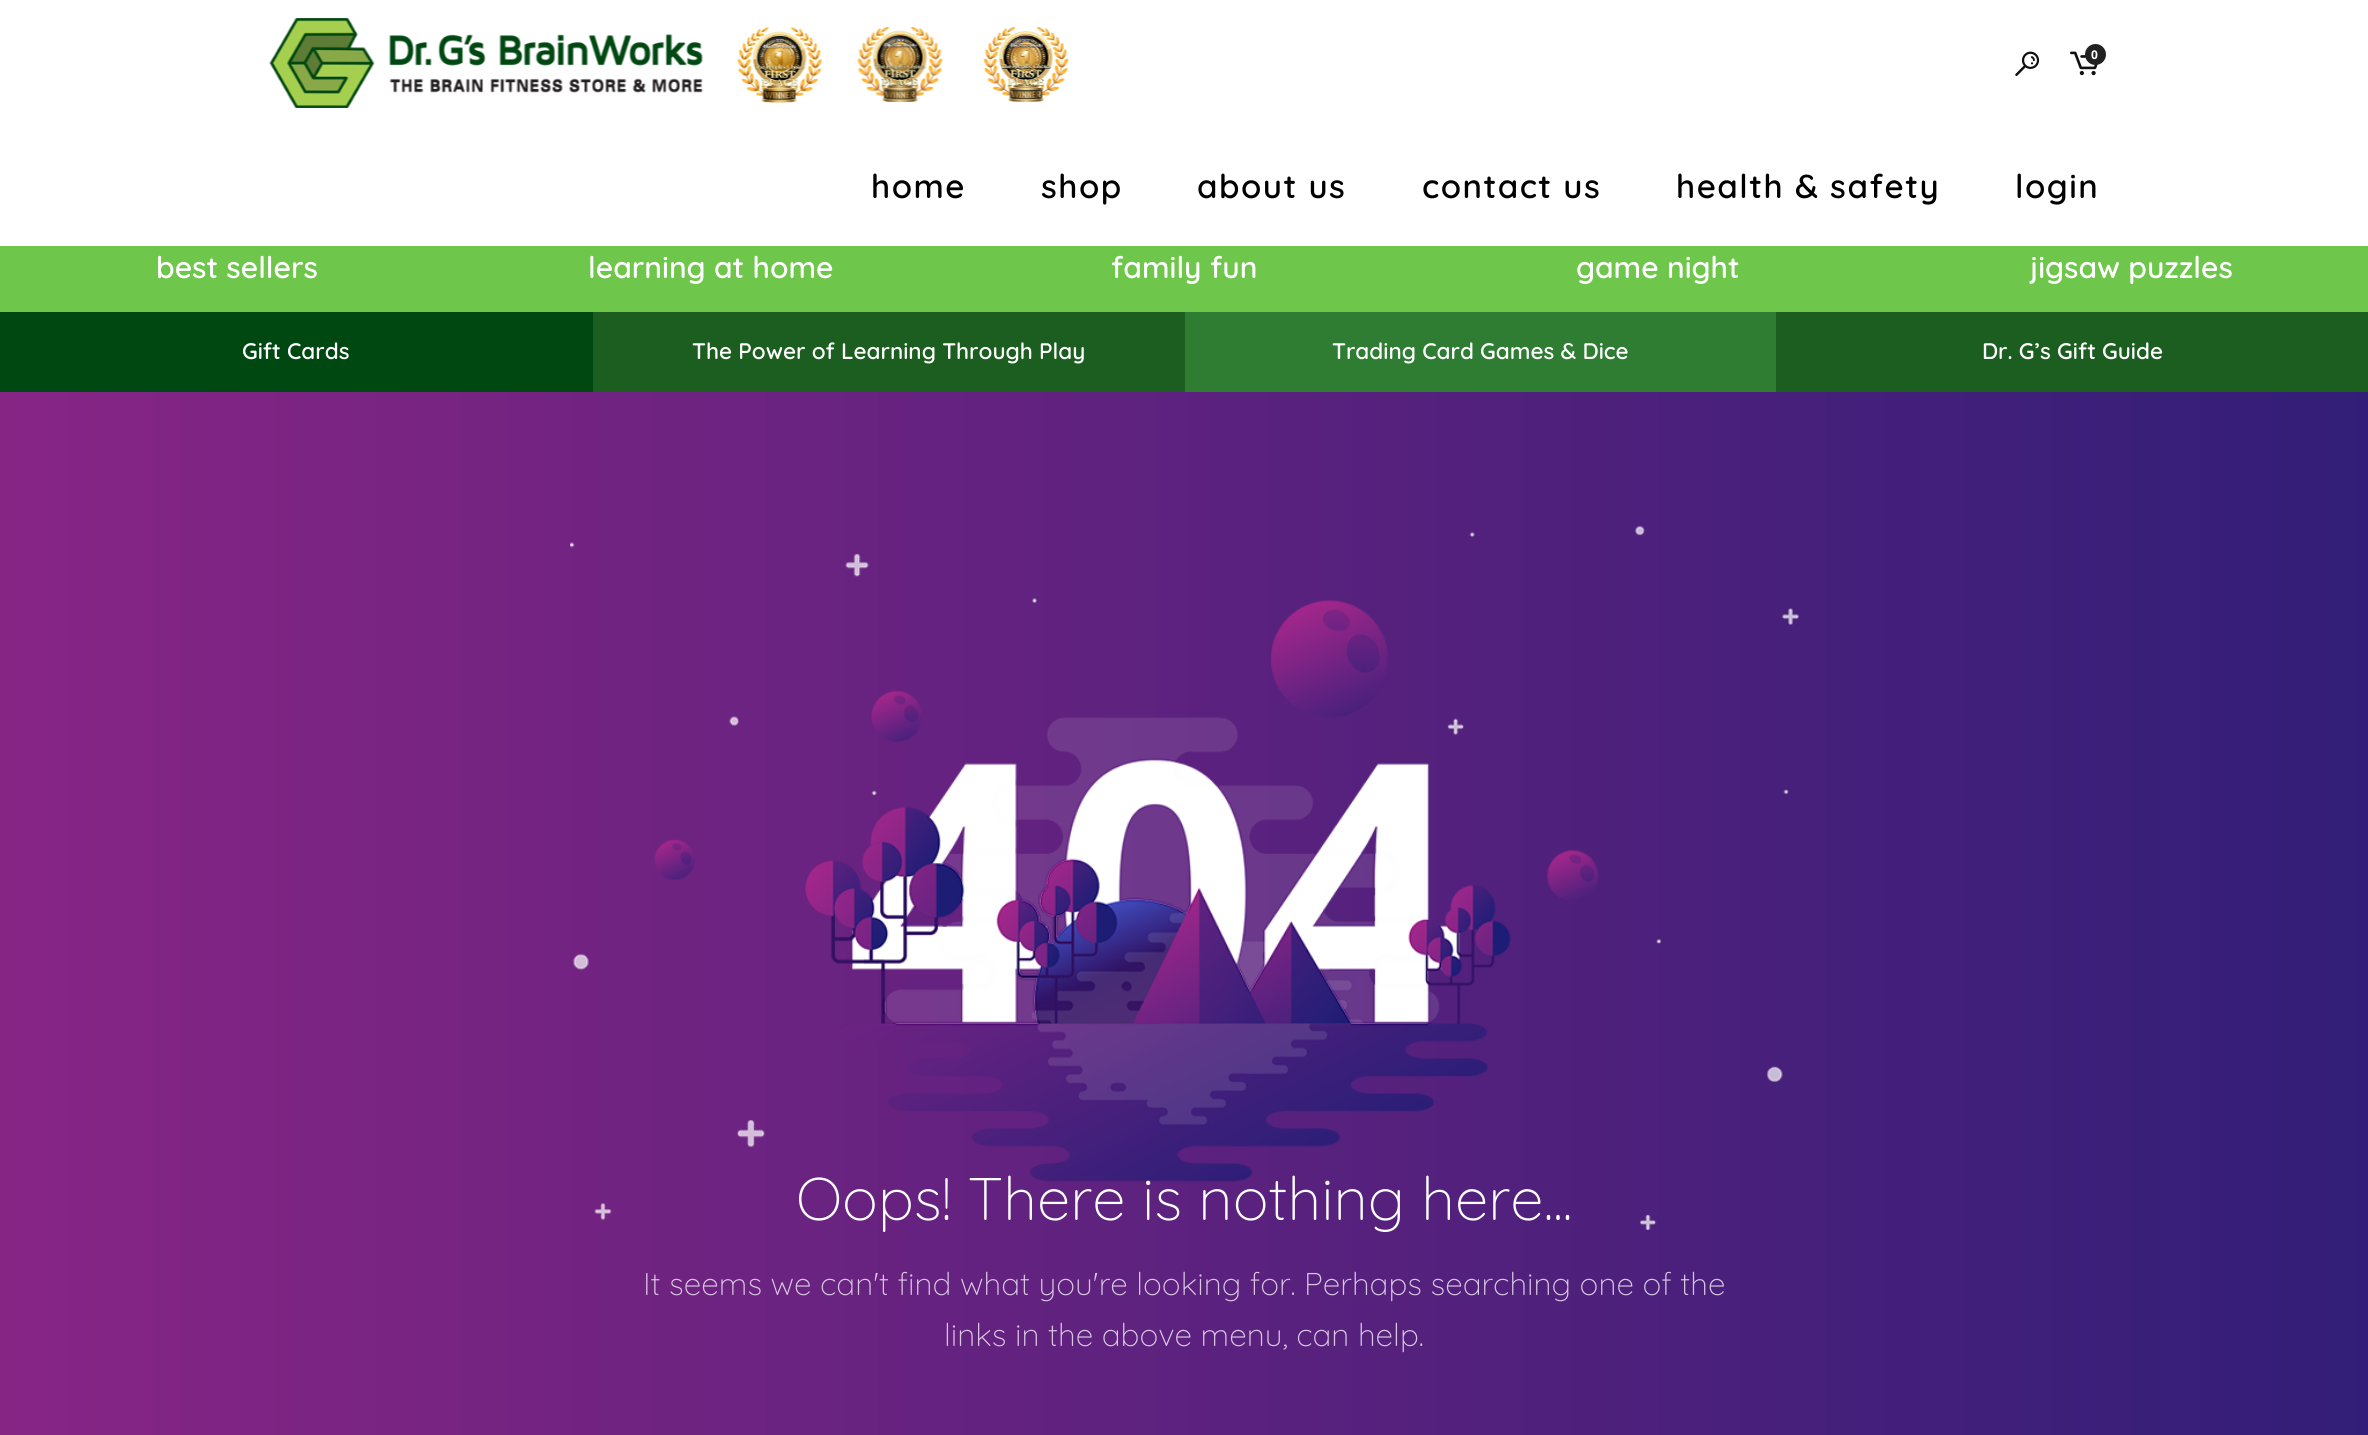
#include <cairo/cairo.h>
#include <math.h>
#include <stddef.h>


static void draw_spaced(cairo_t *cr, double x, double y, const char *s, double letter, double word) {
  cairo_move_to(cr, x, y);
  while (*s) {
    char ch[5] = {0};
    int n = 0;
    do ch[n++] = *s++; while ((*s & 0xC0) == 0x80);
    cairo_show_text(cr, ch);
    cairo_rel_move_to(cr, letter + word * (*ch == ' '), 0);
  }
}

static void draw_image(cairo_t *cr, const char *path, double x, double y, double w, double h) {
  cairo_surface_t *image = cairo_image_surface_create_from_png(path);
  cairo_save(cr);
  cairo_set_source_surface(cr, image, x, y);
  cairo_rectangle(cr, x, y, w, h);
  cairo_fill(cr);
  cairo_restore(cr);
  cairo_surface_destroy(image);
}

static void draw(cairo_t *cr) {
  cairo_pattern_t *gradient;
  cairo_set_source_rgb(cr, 110 / 255.0, 198 / 255.0, 75 / 255.0);
  cairo_paint(cr);
  cairo_set_source_rgb(cr, 1, 1, 1);
  cairo_rectangle(cr, 0, 0, 2368, 246);
  cairo_fill(cr);
  draw_image(cr, "images/1.png", 269, 18, 434, 90);
  draw_image(cr, "images/2.png", 737, 27, 86, 76);
  draw_image(cr, "images/3.png", 857, 27, 86, 75);
  draw_image(cr, "images/4.png", 983, 27, 86, 75);
  draw_image(cr, "images/5.png", 2015, 51, 25, 25);
  draw_image(cr, "images/6.png", 2070, 51, 28, 25);
  cairo_set_source_rgb(cr, 33 / 255.0, 33 / 255.0, 33 / 255.0);
  cairo_arc(cr, 2095.5, 54.5, 10.5, 0, 2 * M_PI);
  cairo_fill(cr);
  cairo_set_source_rgb(cr, 0, 72 / 255.0, 18 / 255.0);
  cairo_rectangle(cr, 0, 312, 593, 80);
  cairo_fill(cr);
  cairo_set_source_rgb(cr, 27 / 255.0, 94 / 255.0, 32 / 255.0);
  cairo_rectangle(cr, 593, 312, 592, 80);
  cairo_fill(cr);
  cairo_set_source_rgb(cr, 46 / 255.0, 125 / 255.0, 50 / 255.0);
  cairo_rectangle(cr, 1185, 312, 591, 80);
  cairo_fill(cr);
  cairo_set_source_rgb(cr, 27 / 255.0, 94 / 255.0, 32 / 255.0);
  cairo_rectangle(cr, 1776, 312, 592, 80);
  cairo_fill(cr);
  gradient = cairo_pattern_create_linear(0, 1057, 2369, 1057);
  cairo_pattern_add_color_stop_rgba(gradient, 0, 135 / 255.0, 37 / 255.0, 133 / 255.0, 1);
  cairo_pattern_add_color_stop_rgba(gradient, 1, 50 / 255.0, 30 / 255.0, 120 / 255.0, 1);
  cairo_set_source(cr, gradient);
  cairo_pattern_destroy(gradient);
  cairo_rectangle(cr, 0, 392, 2368, 1043);
  cairo_fill(cr);
  draw_image(cr, "images/7.png", 570, 526, 1229, 704);
  cairo_select_font_face(cr, "Open Sans", CAIRO_FONT_SLANT_NORMAL, CAIRO_FONT_WEIGHT_BOLD);
  cairo_set_font_size(cr, 12);
  cairo_set_source_rgb(cr, 1, 1, 1);
  cairo_move_to(cr, 2091, 59);
  cairo_show_text(cr, "0");
  cairo_select_font_face(cr, "Quicksand SemiBold", CAIRO_FONT_SLANT_NORMAL, CAIRO_FONT_WEIGHT_NORMAL);
  cairo_set_font_size(cr, 33);
  cairo_set_source_rgb(cr, 0, 0, 0);
  draw_spaced(cr, 871, 198, "home", 1.5, 0);
  draw_spaced(cr, 1041, 198, "shop", 1.5, 0);
  draw_spaced(cr, 1197, 198, "about us", 1.5, 0);
  draw_spaced(cr, 1422, 198, "contact us", 1.5, 0);
  draw_spaced(cr, 1676, 198, "health & safety", 1.5, 0);
  draw_spaced(cr, 2015, 198, "login", 1.5, 0);
  cairo_set_font_size(cr, 30);
  cairo_set_source_rgb(cr, 1, 1, 1);
  cairo_move_to(cr, 156, 278);
  cairo_show_text(cr, "best sellers");
  cairo_move_to(cr, 588, 278);
  cairo_show_text(cr, "learning at home");
  cairo_move_to(cr, 1111, 278);
  cairo_show_text(cr, "family fun");
  cairo_move_to(cr, 1576, 278);
  cairo_show_text(cr, "game night");
  cairo_move_to(cr, 2030, 278);
  cairo_show_text(cr, "jigsaw puzzles");
  cairo_set_font_size(cr, 22.5);
  cairo_move_to(cr, 242, 359);
  cairo_show_text(cr, "Gift Cards");
  cairo_move_to(cr, 692, 359);
  cairo_show_text(cr, "The Power of Learning Through Play");
  cairo_move_to(cr, 1332, 359);
  cairo_show_text(cr, "Trading Card Games & Dice");
  cairo_move_to(cr, 1982, 359);
  cairo_show_text(cr, "Dr. G’s Gift Guide");
  cairo_select_font_face(cr, "Quicksand Light", CAIRO_FONT_SLANT_NORMAL, CAIRO_FONT_WEIGHT_NORMAL);
  cairo_set_font_size(cr, 60);
  cairo_move_to(cr, 796, 1220);
  cairo_show_text(cr, "Oops! There is nothing here...");
  cairo_set_font_size(cr, 31.5);
  cairo_set_source_rgb(cr, 217 / 255.0, 199 / 255.0, 226 / 255.0);
  cairo_move_to(cr, 643, 1295);
  cairo_show_text(cr, "It seems we can't find what you're looking for. Perhaps searching one of the");
  cairo_move_to(cr, 944, 1346);
  cairo_show_text(cr, "links in the above menu, can help.");
}

int main(void) {
  cairo_surface_t *surface = cairo_image_surface_create(CAIRO_FORMAT_RGB24, 2368, 1435);
  cairo_t *cr = cairo_create(surface);
  cairo_font_options_t *options = cairo_font_options_create();
  cairo_font_options_set_hint_metrics(options, CAIRO_HINT_METRICS_OFF);
  cairo_font_options_set_hint_style(options, CAIRO_HINT_STYLE_NONE);
  cairo_set_font_options(cr, options);
  cairo_set_miter_limit(cr, 4);
  draw(cr);
  cairo_surface_write_to_png(surface, "out.png");
  cairo_font_options_destroy(options);
  cairo_destroy(cr);
  cairo_surface_destroy(surface);
  return 0;
}
